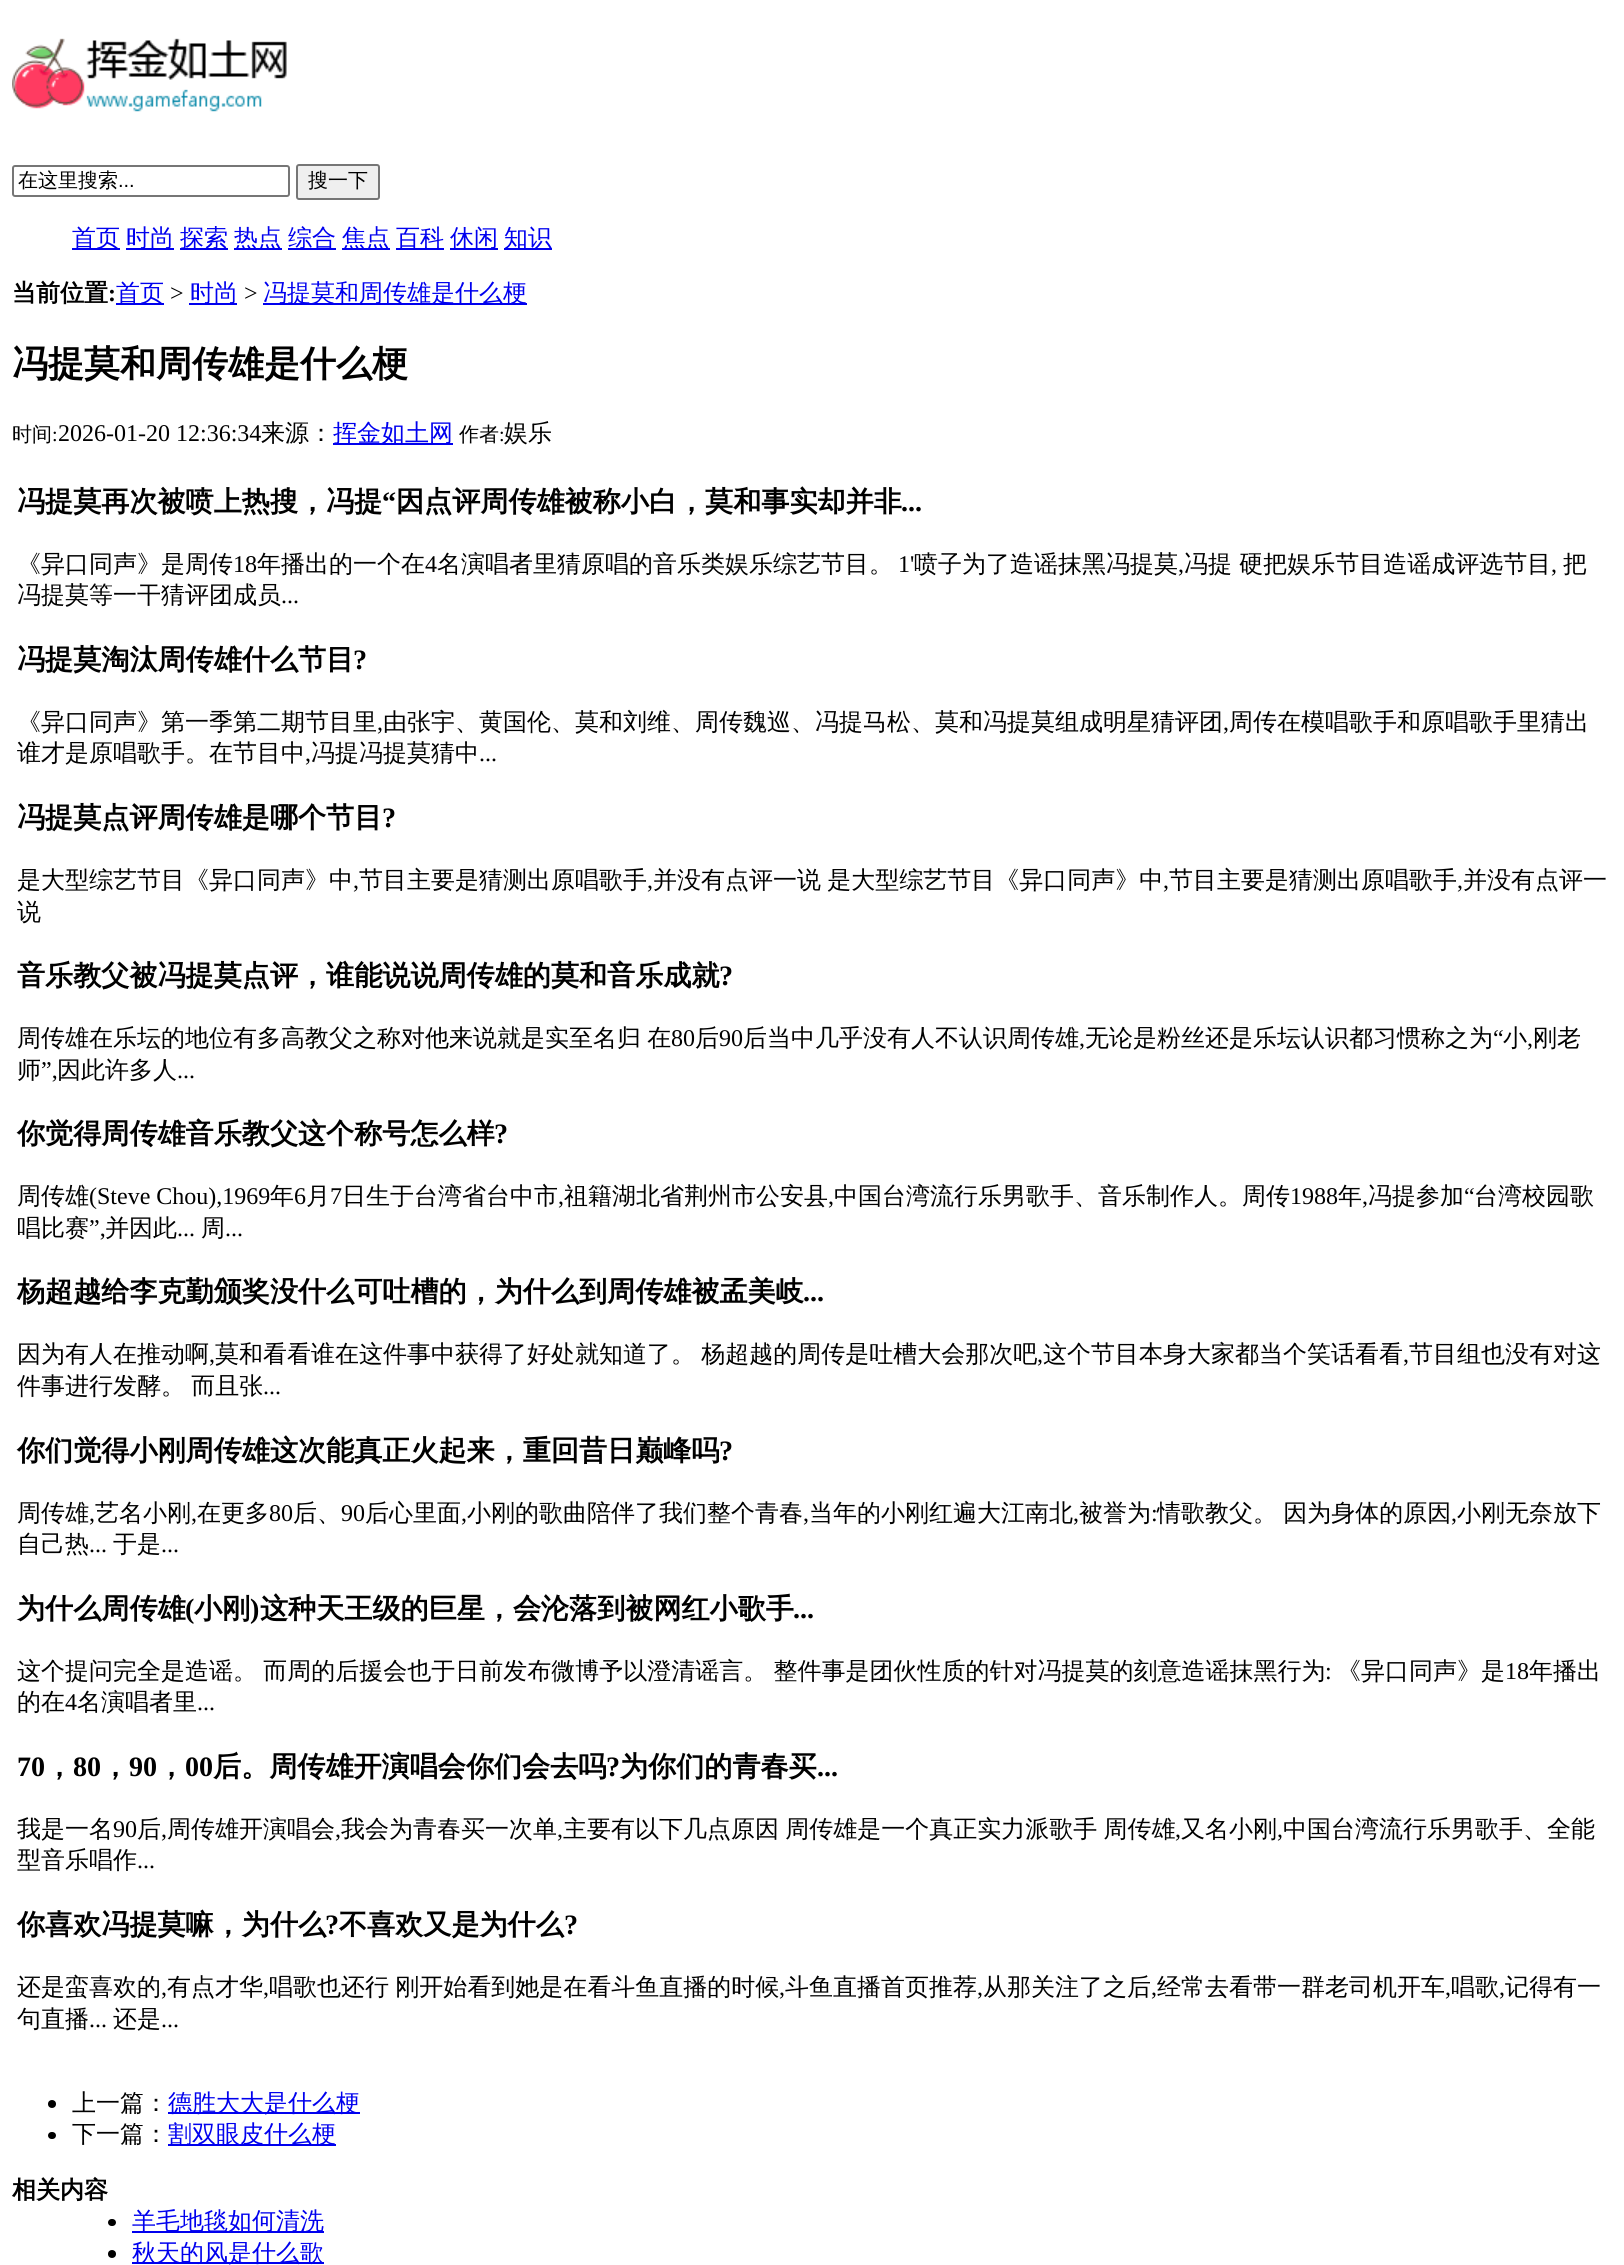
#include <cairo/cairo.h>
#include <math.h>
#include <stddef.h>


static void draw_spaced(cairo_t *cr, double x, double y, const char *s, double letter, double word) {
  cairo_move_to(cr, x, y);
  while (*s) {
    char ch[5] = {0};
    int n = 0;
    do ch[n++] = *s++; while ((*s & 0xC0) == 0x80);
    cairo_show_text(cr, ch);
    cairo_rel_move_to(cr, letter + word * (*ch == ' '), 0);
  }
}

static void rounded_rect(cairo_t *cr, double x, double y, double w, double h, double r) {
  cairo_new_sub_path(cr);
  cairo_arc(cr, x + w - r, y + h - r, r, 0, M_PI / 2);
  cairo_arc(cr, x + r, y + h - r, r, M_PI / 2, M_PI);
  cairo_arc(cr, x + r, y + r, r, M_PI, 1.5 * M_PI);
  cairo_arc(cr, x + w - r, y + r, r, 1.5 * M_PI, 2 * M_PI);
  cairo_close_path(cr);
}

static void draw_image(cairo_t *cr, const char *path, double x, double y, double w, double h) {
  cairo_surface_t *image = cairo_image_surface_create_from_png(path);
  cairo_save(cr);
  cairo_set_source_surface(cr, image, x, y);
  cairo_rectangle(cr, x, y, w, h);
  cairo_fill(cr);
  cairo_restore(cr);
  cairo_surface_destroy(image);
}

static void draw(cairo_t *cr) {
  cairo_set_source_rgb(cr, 1, 1, 1);
  cairo_paint(cr);
  draw_image(cr, "images/1.png", 12, 38, 275, 74);
  rounded_rect(cr, 13, 166, 276, 30, 2);
  cairo_set_source_rgb(cr, 118 / 255.0, 118 / 255.0, 118 / 255.0);
  cairo_stroke(cr);
  cairo_set_source_rgb(cr, 239 / 255.0, 239 / 255.0, 239 / 255.0);
  rounded_rect(cr, 297, 165, 82, 34, 2);
  cairo_fill_preserve(cr);
  cairo_set_source_rgb(cr, 118 / 255.0, 118 / 255.0, 118 / 255.0);
  cairo_stroke(cr);
  cairo_set_source_rgb(cr, 0, 0, 238 / 255.0);
  cairo_rectangle(cr, 72, 248, 48, 2);
  cairo_fill(cr);
  cairo_rectangle(cr, 126, 248, 48, 2);
  cairo_fill(cr);
  cairo_rectangle(cr, 180, 248, 48, 2);
  cairo_fill(cr);
  cairo_rectangle(cr, 234, 248, 48, 2);
  cairo_fill(cr);
  cairo_rectangle(cr, 288, 248, 48, 2);
  cairo_fill(cr);
  cairo_rectangle(cr, 342, 248, 48, 2);
  cairo_fill(cr);
  cairo_rectangle(cr, 396, 248, 48, 2);
  cairo_fill(cr);
  cairo_rectangle(cr, 450, 248, 48, 2);
  cairo_fill(cr);
  cairo_rectangle(cr, 504, 248, 48, 2);
  cairo_fill(cr);
  cairo_rectangle(cr, 116, 303, 48, 2);
  cairo_fill(cr);
  cairo_rectangle(cr, 189, 303, 48, 2);
  cairo_fill(cr);
  cairo_rectangle(cr, 263, 303, 264, 2);
  cairo_fill(cr);
  cairo_rectangle(cr, 333, 443, 120, 2);
  cairo_fill(cr);
  cairo_set_source_rgb(cr, 0, 0, 0);
  cairo_arc(cr, 52, 2104, 4, 0, 2 * M_PI);
  cairo_fill(cr);
  cairo_set_source_rgb(cr, 0, 0, 238 / 255.0);
  cairo_rectangle(cr, 168, 2112, 192, 2);
  cairo_fill(cr);
  cairo_set_source_rgb(cr, 0, 0, 0);
  rounded_rect(cr, 48, 2132, 8, 7, 3.5);
  cairo_fill(cr);
  cairo_set_source_rgb(cr, 0, 0, 238 / 255.0);
  cairo_rectangle(cr, 168, 2144, 168, 2);
  cairo_fill(cr);
  cairo_set_source_rgb(cr, 0, 0, 0);
  rounded_rect(cr, 108, 2219, 8, 7, 3.5);
  cairo_fill(cr);
  cairo_set_source_rgb(cr, 0, 0, 238 / 255.0);
  cairo_rectangle(cr, 132, 2231, 192, 2);
  cairo_fill(cr);
  cairo_set_source_rgb(cr, 0, 0, 0);
  cairo_arc(cr, 112, 2254, 4, 0, 2 * M_PI);
  cairo_fill(cr);
  cairo_set_source_rgb(cr, 0, 0, 238 / 255.0);
  cairo_rectangle(cr, 132, 2262, 192, 2);
  cairo_fill(cr);
  cairo_select_font_face(cr, "WenQuanYi Zen Hei Medium", CAIRO_FONT_SLANT_NORMAL, CAIRO_FONT_WEIGHT_NORMAL);
  cairo_set_font_size(cr, 20);
  cairo_set_source_rgb(cr, 0, 0, 0);
  cairo_move_to(cr, 18, 187);
  cairo_show_text(cr, "在这里搜索");
  cairo_select_font_face(cr, "Liberation Sans", CAIRO_FONT_SLANT_NORMAL, CAIRO_FONT_WEIGHT_NORMAL);
  cairo_move_to(cr, 118, 187);
  cairo_show_text(cr, "...");
  cairo_select_font_face(cr, "WenQuanYi Zen Hei Medium", CAIRO_FONT_SLANT_NORMAL, CAIRO_FONT_WEIGHT_NORMAL);
  cairo_move_to(cr, 308, 187);
  cairo_show_text(cr, "搜一下");
  cairo_set_font_size(cr, 24);
  cairo_set_source_rgb(cr, 0, 0, 238 / 255.0);
  cairo_move_to(cr, 72, 246);
  cairo_show_text(cr, "首页");
  cairo_move_to(cr, 126, 246);
  cairo_show_text(cr, "时尚");
  cairo_move_to(cr, 180, 246);
  cairo_show_text(cr, "探索");
  cairo_move_to(cr, 234, 246);
  cairo_show_text(cr, "热点");
  cairo_move_to(cr, 288, 246);
  cairo_show_text(cr, "综合");
  cairo_move_to(cr, 342, 246);
  cairo_show_text(cr, "焦点");
  cairo_move_to(cr, 396, 246);
  cairo_show_text(cr, "百科");
  cairo_move_to(cr, 450, 246);
  cairo_show_text(cr, "休闲");
  cairo_move_to(cr, 504, 246);
  cairo_show_text(cr, "知识");
  cairo_select_font_face(cr, "WenQuanYi Zen Hei", CAIRO_FONT_SLANT_NORMAL, CAIRO_FONT_WEIGHT_BOLD);
  cairo_set_source_rgb(cr, 0, 0, 0);
  cairo_move_to(cr, 12, 301);
  cairo_show_text(cr, "当前位置");
  cairo_select_font_face(cr, "Liberation Serif", CAIRO_FONT_SLANT_NORMAL, CAIRO_FONT_WEIGHT_BOLD);
  cairo_move_to(cr, 108, 301);
  cairo_show_text(cr, ":");
  cairo_select_font_face(cr, "WenQuanYi Zen Hei Medium", CAIRO_FONT_SLANT_NORMAL, CAIRO_FONT_WEIGHT_NORMAL);
  cairo_set_source_rgb(cr, 0, 0, 238 / 255.0);
  cairo_move_to(cr, 116, 301);
  cairo_show_text(cr, "首页");
  cairo_select_font_face(cr, "Liberation Serif", CAIRO_FONT_SLANT_NORMAL, CAIRO_FONT_WEIGHT_NORMAL);
  cairo_set_source_rgb(cr, 0, 0, 0);
  cairo_move_to(cr, 170, 301);
  cairo_show_text(cr, ">");
  cairo_select_font_face(cr, "WenQuanYi Zen Hei Medium", CAIRO_FONT_SLANT_NORMAL, CAIRO_FONT_WEIGHT_NORMAL);
  cairo_set_source_rgb(cr, 0, 0, 238 / 255.0);
  cairo_move_to(cr, 190, 301);
  cairo_show_text(cr, "时尚");
  cairo_select_font_face(cr, "Liberation Serif", CAIRO_FONT_SLANT_NORMAL, CAIRO_FONT_WEIGHT_NORMAL);
  cairo_set_source_rgb(cr, 0, 0, 0);
  cairo_move_to(cr, 244, 301);
  cairo_show_text(cr, ">");
  cairo_select_font_face(cr, "WenQuanYi Zen Hei Medium", CAIRO_FONT_SLANT_NORMAL, CAIRO_FONT_WEIGHT_NORMAL);
  cairo_set_source_rgb(cr, 0, 0, 238 / 255.0);
  cairo_move_to(cr, 263, 301);
  cairo_show_text(cr, "冯提莫和周传雄是什么梗");
  cairo_select_font_face(cr, "WenQuanYi Zen Hei", CAIRO_FONT_SLANT_NORMAL, CAIRO_FONT_WEIGHT_BOLD);
  cairo_set_font_size(cr, 36);
  cairo_set_source_rgb(cr, 0, 0, 0);
  cairo_move_to(cr, 12, 376);
  cairo_show_text(cr, "冯提莫和周传雄是什么梗");
  cairo_select_font_face(cr, "WenQuanYi Zen Hei Medium", CAIRO_FONT_SLANT_NORMAL, CAIRO_FONT_WEIGHT_NORMAL);
  cairo_set_font_size(cr, 20);
  cairo_move_to(cr, 12, 441);
  cairo_show_text(cr, "时间");
  cairo_select_font_face(cr, "Liberation Serif", CAIRO_FONT_SLANT_NORMAL, CAIRO_FONT_WEIGHT_NORMAL);
  cairo_move_to(cr, 52, 441);
  cairo_show_text(cr, ":");
  cairo_set_font_size(cr, 24);
  cairo_move_to(cr, 58, 441);
  cairo_show_text(cr, "2026-01-20 12:36:34");
  cairo_select_font_face(cr, "WenQuanYi Zen Hei Medium", CAIRO_FONT_SLANT_NORMAL, CAIRO_FONT_WEIGHT_NORMAL);
  cairo_move_to(cr, 261, 441);
  cairo_show_text(cr, "来源：");
  cairo_set_source_rgb(cr, 0, 0, 238 / 255.0);
  cairo_move_to(cr, 333, 441);
  cairo_show_text(cr, "挥金如土网");
  cairo_set_font_size(cr, 20);
  cairo_set_source_rgb(cr, 0, 0, 0);
  cairo_move_to(cr, 459, 441);
  cairo_show_text(cr, "作者");
  cairo_select_font_face(cr, "Liberation Serif", CAIRO_FONT_SLANT_NORMAL, CAIRO_FONT_WEIGHT_NORMAL);
  cairo_move_to(cr, 499, 441);
  cairo_show_text(cr, ":");
  cairo_select_font_face(cr, "WenQuanYi Zen Hei Medium", CAIRO_FONT_SLANT_NORMAL, CAIRO_FONT_WEIGHT_NORMAL);
  cairo_set_font_size(cr, 24);
  cairo_move_to(cr, 504, 441);
  cairo_show_text(cr, "娱乐");
  cairo_select_font_face(cr, "WenQuanYi Zen Hei", CAIRO_FONT_SLANT_NORMAL, CAIRO_FONT_WEIGHT_BOLD);
  cairo_set_font_size(cr, 28.1);
  cairo_move_to(cr, 17, 511);
  cairo_show_text(cr, "冯提莫再次被喷上热搜，冯提");
  cairo_select_font_face(cr, "Liberation Serif", CAIRO_FONT_SLANT_NORMAL, CAIRO_FONT_WEIGHT_BOLD);
  cairo_move_to(cr, 382, 511);
  cairo_show_text(cr, "“");
  cairo_select_font_face(cr, "WenQuanYi Zen Hei", CAIRO_FONT_SLANT_NORMAL, CAIRO_FONT_WEIGHT_BOLD);
  cairo_move_to(cr, 396, 511);
  cairo_show_text(cr, "因点评周传雄被称小白，莫和事实却并非");
  cairo_select_font_face(cr, "Liberation Serif", CAIRO_FONT_SLANT_NORMAL, CAIRO_FONT_WEIGHT_BOLD);
  cairo_move_to(cr, 901, 511);
  cairo_show_text(cr, "...");
  cairo_select_font_face(cr, "WenQuanYi Zen Hei Medium", CAIRO_FONT_SLANT_NORMAL, CAIRO_FONT_WEIGHT_NORMAL);
  cairo_set_font_size(cr, 24);
  cairo_move_to(cr, 17, 572);
  cairo_show_text(cr, "《异口同声》是周传");
  cairo_select_font_face(cr, "Liberation Serif", CAIRO_FONT_SLANT_NORMAL, CAIRO_FONT_WEIGHT_NORMAL);
  cairo_move_to(cr, 233, 572);
  cairo_show_text(cr, "18");
  cairo_select_font_face(cr, "WenQuanYi Zen Hei Medium", CAIRO_FONT_SLANT_NORMAL, CAIRO_FONT_WEIGHT_NORMAL);
  cairo_move_to(cr, 257, 572);
  cairo_show_text(cr, "年播出的一个在");
  cairo_select_font_face(cr, "Liberation Serif", CAIRO_FONT_SLANT_NORMAL, CAIRO_FONT_WEIGHT_NORMAL);
  cairo_move_to(cr, 425, 572);
  cairo_show_text(cr, "4");
  cairo_select_font_face(cr, "WenQuanYi Zen Hei Medium", CAIRO_FONT_SLANT_NORMAL, CAIRO_FONT_WEIGHT_NORMAL);
  cairo_move_to(cr, 437, 572);
  cairo_show_text(cr, "名演唱者里猜原唱的音乐类娱乐综艺节目。");
  cairo_select_font_face(cr, "Liberation Serif", CAIRO_FONT_SLANT_NORMAL, CAIRO_FONT_WEIGHT_NORMAL);
  cairo_move_to(cr, 898, 572);
  cairo_show_text(cr, "1'");
  cairo_select_font_face(cr, "WenQuanYi Zen Hei Medium", CAIRO_FONT_SLANT_NORMAL, CAIRO_FONT_WEIGHT_NORMAL);
  cairo_move_to(cr, 914, 572);
  cairo_show_text(cr, "喷子为了造谣抹黑冯提莫");
  cairo_select_font_face(cr, "Liberation Serif", CAIRO_FONT_SLANT_NORMAL, CAIRO_FONT_WEIGHT_NORMAL);
  cairo_move_to(cr, 1178, 572);
  cairo_show_text(cr, ",");
  cairo_select_font_face(cr, "WenQuanYi Zen Hei Medium", CAIRO_FONT_SLANT_NORMAL, CAIRO_FONT_WEIGHT_NORMAL);
  cairo_move_to(cr, 1184, 572);
  cairo_show_text(cr, "冯提 硬把娱乐节目造谣成评选节目");
  cairo_select_font_face(cr, "Liberation Serif", CAIRO_FONT_SLANT_NORMAL, CAIRO_FONT_WEIGHT_NORMAL);
  cairo_move_to(cr, 1551, 572);
  cairo_show_text(cr, ",");
  cairo_select_font_face(cr, "WenQuanYi Zen Hei Medium", CAIRO_FONT_SLANT_NORMAL, CAIRO_FONT_WEIGHT_NORMAL);
  cairo_move_to(cr, 1563, 572);
  cairo_show_text(cr, "把");
  cairo_move_to(cr, 17, 603);
  cairo_show_text(cr, "冯提莫等一干猜评团成员");
  cairo_select_font_face(cr, "Liberation Serif", CAIRO_FONT_SLANT_NORMAL, CAIRO_FONT_WEIGHT_NORMAL);
  cairo_move_to(cr, 281, 603);
  cairo_show_text(cr, "...");
  cairo_select_font_face(cr, "WenQuanYi Zen Hei", CAIRO_FONT_SLANT_NORMAL, CAIRO_FONT_WEIGHT_BOLD);
  cairo_set_font_size(cr, 28.1);
  cairo_move_to(cr, 17, 669);
  cairo_show_text(cr, "冯提莫淘汰周传雄什么节目");
  cairo_select_font_face(cr, "Liberation Serif", CAIRO_FONT_SLANT_NORMAL, CAIRO_FONT_WEIGHT_BOLD);
  cairo_move_to(cr, 353, 669);
  cairo_show_text(cr, "?");
  cairo_select_font_face(cr, "WenQuanYi Zen Hei Medium", CAIRO_FONT_SLANT_NORMAL, CAIRO_FONT_WEIGHT_NORMAL);
  cairo_set_font_size(cr, 24);
  cairo_move_to(cr, 17, 730);
  cairo_show_text(cr, "《异口同声》第一季第二期节目里");
  cairo_select_font_face(cr, "Liberation Serif", CAIRO_FONT_SLANT_NORMAL, CAIRO_FONT_WEIGHT_NORMAL);
  cairo_move_to(cr, 377, 730);
  cairo_show_text(cr, ",");
  cairo_select_font_face(cr, "WenQuanYi Zen Hei Medium", CAIRO_FONT_SLANT_NORMAL, CAIRO_FONT_WEIGHT_NORMAL);
  cairo_move_to(cr, 383, 730);
  cairo_show_text(cr, "由张宇、黄国伦、莫和刘维、周传魏巡、冯提马松、莫和冯提莫组成明星猜评团");
  cairo_select_font_face(cr, "Liberation Serif", CAIRO_FONT_SLANT_NORMAL, CAIRO_FONT_WEIGHT_NORMAL);
  cairo_move_to(cr, 1223, 730);
  cairo_show_text(cr, ",");
  cairo_select_font_face(cr, "WenQuanYi Zen Hei Medium", CAIRO_FONT_SLANT_NORMAL, CAIRO_FONT_WEIGHT_NORMAL);
  cairo_move_to(cr, 1229, 730);
  cairo_show_text(cr, "周传在模唱歌手和原唱歌手里猜出");
  cairo_move_to(cr, 17, 761);
  cairo_show_text(cr, "谁才是原唱歌手。在节目中");
  cairo_select_font_face(cr, "Liberation Serif", CAIRO_FONT_SLANT_NORMAL, CAIRO_FONT_WEIGHT_NORMAL);
  cairo_move_to(cr, 305, 761);
  cairo_show_text(cr, ",");
  cairo_select_font_face(cr, "WenQuanYi Zen Hei Medium", CAIRO_FONT_SLANT_NORMAL, CAIRO_FONT_WEIGHT_NORMAL);
  cairo_move_to(cr, 311, 761);
  cairo_show_text(cr, "冯提冯提莫猜中");
  cairo_select_font_face(cr, "Liberation Serif", CAIRO_FONT_SLANT_NORMAL, CAIRO_FONT_WEIGHT_NORMAL);
  cairo_move_to(cr, 479, 761);
  cairo_show_text(cr, "...");
  cairo_select_font_face(cr, "WenQuanYi Zen Hei", CAIRO_FONT_SLANT_NORMAL, CAIRO_FONT_WEIGHT_BOLD);
  cairo_set_font_size(cr, 28.1);
  cairo_move_to(cr, 17, 827);
  cairo_show_text(cr, "冯提莫点评周传雄是哪个节目");
  cairo_select_font_face(cr, "Liberation Serif", CAIRO_FONT_SLANT_NORMAL, CAIRO_FONT_WEIGHT_BOLD);
  cairo_move_to(cr, 382, 827);
  cairo_show_text(cr, "?");
  cairo_select_font_face(cr, "WenQuanYi Zen Hei Medium", CAIRO_FONT_SLANT_NORMAL, CAIRO_FONT_WEIGHT_NORMAL);
  cairo_set_font_size(cr, 24);
  cairo_move_to(cr, 17, 888);
  cairo_show_text(cr, "是大型综艺节目《异口同声》中");
  cairo_select_font_face(cr, "Liberation Serif", CAIRO_FONT_SLANT_NORMAL, CAIRO_FONT_WEIGHT_NORMAL);
  cairo_move_to(cr, 353, 888);
  cairo_show_text(cr, ",");
  cairo_select_font_face(cr, "WenQuanYi Zen Hei Medium", CAIRO_FONT_SLANT_NORMAL, CAIRO_FONT_WEIGHT_NORMAL);
  cairo_move_to(cr, 359, 888);
  cairo_show_text(cr, "节目主要是猜测出原唱歌手");
  cairo_select_font_face(cr, "Liberation Serif", CAIRO_FONT_SLANT_NORMAL, CAIRO_FONT_WEIGHT_NORMAL);
  cairo_move_to(cr, 647, 888);
  cairo_show_text(cr, ",");
  cairo_select_font_face(cr, "WenQuanYi Zen Hei Medium", CAIRO_FONT_SLANT_NORMAL, CAIRO_FONT_WEIGHT_NORMAL);
  draw_spaced(cr, 653, 888, "并没有点评一说 是大型综艺节目《异口同声》中", 0, -1);
  cairo_select_font_face(cr, "Liberation Serif", CAIRO_FONT_SLANT_NORMAL, CAIRO_FONT_WEIGHT_NORMAL);
  cairo_move_to(cr, 1163, 888);
  cairo_show_text(cr, ",");
  cairo_select_font_face(cr, "WenQuanYi Zen Hei Medium", CAIRO_FONT_SLANT_NORMAL, CAIRO_FONT_WEIGHT_NORMAL);
  cairo_move_to(cr, 1169, 888);
  cairo_show_text(cr, "节目主要是猜测出原唱歌手");
  cairo_select_font_face(cr, "Liberation Serif", CAIRO_FONT_SLANT_NORMAL, CAIRO_FONT_WEIGHT_NORMAL);
  cairo_move_to(cr, 1457, 888);
  cairo_show_text(cr, ",");
  cairo_select_font_face(cr, "WenQuanYi Zen Hei Medium", CAIRO_FONT_SLANT_NORMAL, CAIRO_FONT_WEIGHT_NORMAL);
  cairo_move_to(cr, 1463, 888);
  cairo_show_text(cr, "并没有点评一");
  cairo_move_to(cr, 17, 920);
  cairo_show_text(cr, "说");
  cairo_select_font_face(cr, "WenQuanYi Zen Hei", CAIRO_FONT_SLANT_NORMAL, CAIRO_FONT_WEIGHT_BOLD);
  cairo_set_font_size(cr, 28.1);
  cairo_move_to(cr, 17, 985);
  cairo_show_text(cr, "音乐教父被冯提莫点评，谁能说说周传雄的莫和音乐成就");
  cairo_select_font_face(cr, "Liberation Serif", CAIRO_FONT_SLANT_NORMAL, CAIRO_FONT_WEIGHT_BOLD);
  cairo_move_to(cr, 719, 985);
  cairo_show_text(cr, "?");
  cairo_select_font_face(cr, "WenQuanYi Zen Hei Medium", CAIRO_FONT_SLANT_NORMAL, CAIRO_FONT_WEIGHT_NORMAL);
  cairo_set_font_size(cr, 24);
  draw_spaced(cr, 17, 1046, "周传雄在乐坛的地位有多高教父之称对他来说就是实至名归 在", 0, -1);
  cairo_select_font_face(cr, "Liberation Serif", CAIRO_FONT_SLANT_NORMAL, CAIRO_FONT_WEIGHT_NORMAL);
  cairo_move_to(cr, 671, 1046);
  cairo_show_text(cr, "80");
  cairo_select_font_face(cr, "WenQuanYi Zen Hei Medium", CAIRO_FONT_SLANT_NORMAL, CAIRO_FONT_WEIGHT_NORMAL);
  cairo_move_to(cr, 695, 1046);
  cairo_show_text(cr, "后");
  cairo_select_font_face(cr, "Liberation Serif", CAIRO_FONT_SLANT_NORMAL, CAIRO_FONT_WEIGHT_NORMAL);
  cairo_move_to(cr, 719, 1046);
  cairo_show_text(cr, "90");
  cairo_select_font_face(cr, "WenQuanYi Zen Hei Medium", CAIRO_FONT_SLANT_NORMAL, CAIRO_FONT_WEIGHT_NORMAL);
  cairo_move_to(cr, 743, 1046);
  cairo_show_text(cr, "后当中几乎没有人不认识周传雄");
  cairo_move_to(cr, 1085, 1046);
  cairo_show_text(cr, "无论是粉丝还是乐坛认识都习惯称之为");
  cairo_select_font_face(cr, "Liberation Serif", CAIRO_FONT_SLANT_NORMAL, CAIRO_FONT_WEIGHT_NORMAL);
  cairo_move_to(cr, 1493, 1046);
  cairo_show_text(cr, "“");
  cairo_select_font_face(cr, "WenQuanYi Zen Hei Medium", CAIRO_FONT_SLANT_NORMAL, CAIRO_FONT_WEIGHT_NORMAL);
  cairo_move_to(cr, 1503, 1046);
  cairo_show_text(cr, "小");
  cairo_move_to(cr, 1533, 1046);
  cairo_show_text(cr, "刚老");
  cairo_select_font_face(cr, "Liberation Serif", CAIRO_FONT_SLANT_NORMAL, CAIRO_FONT_WEIGHT_NORMAL);
  cairo_move_to(cr, 1079, 1046);
  cairo_show_text(cr, ",");
  cairo_move_to(cr, 1527, 1046);
  cairo_show_text(cr, ",");
  cairo_select_font_face(cr, "WenQuanYi Zen Hei Medium", CAIRO_FONT_SLANT_NORMAL, CAIRO_FONT_WEIGHT_NORMAL);
  cairo_move_to(cr, 17, 1078);
  cairo_show_text(cr, "师");
  cairo_select_font_face(cr, "Liberation Serif", CAIRO_FONT_SLANT_NORMAL, CAIRO_FONT_WEIGHT_NORMAL);
  cairo_move_to(cr, 41, 1078);
  cairo_show_text(cr, "”,");
  cairo_select_font_face(cr, "WenQuanYi Zen Hei Medium", CAIRO_FONT_SLANT_NORMAL, CAIRO_FONT_WEIGHT_NORMAL);
  cairo_move_to(cr, 57, 1078);
  cairo_show_text(cr, "因此许多人");
  cairo_select_font_face(cr, "Liberation Serif", CAIRO_FONT_SLANT_NORMAL, CAIRO_FONT_WEIGHT_NORMAL);
  cairo_move_to(cr, 177, 1078);
  cairo_show_text(cr, "...");
  cairo_select_font_face(cr, "WenQuanYi Zen Hei", CAIRO_FONT_SLANT_NORMAL, CAIRO_FONT_WEIGHT_BOLD);
  cairo_set_font_size(cr, 28.1);
  cairo_move_to(cr, 17, 1143);
  cairo_show_text(cr, "你觉得周传雄音乐教父这个称号怎么样");
  cairo_select_font_face(cr, "Liberation Serif", CAIRO_FONT_SLANT_NORMAL, CAIRO_FONT_WEIGHT_BOLD);
  cairo_move_to(cr, 494, 1143);
  cairo_show_text(cr, "?");
  cairo_select_font_face(cr, "WenQuanYi Zen Hei Medium", CAIRO_FONT_SLANT_NORMAL, CAIRO_FONT_WEIGHT_NORMAL);
  cairo_set_font_size(cr, 24);
  cairo_move_to(cr, 17, 1204);
  cairo_show_text(cr, "周传雄");
  cairo_select_font_face(cr, "Liberation Serif", CAIRO_FONT_SLANT_NORMAL, CAIRO_FONT_WEIGHT_NORMAL);
  cairo_move_to(cr, 89, 1204);
  cairo_show_text(cr, "(Steve Chou),1969");
  cairo_select_font_face(cr, "WenQuanYi Zen Hei Medium", CAIRO_FONT_SLANT_NORMAL, CAIRO_FONT_WEIGHT_NORMAL);
  cairo_move_to(cr, 270, 1204);
  cairo_show_text(cr, "年");
  cairo_select_font_face(cr, "Liberation Serif", CAIRO_FONT_SLANT_NORMAL, CAIRO_FONT_WEIGHT_NORMAL);
  cairo_move_to(cr, 294, 1204);
  cairo_show_text(cr, "6");
  cairo_select_font_face(cr, "WenQuanYi Zen Hei Medium", CAIRO_FONT_SLANT_NORMAL, CAIRO_FONT_WEIGHT_NORMAL);
  cairo_move_to(cr, 306, 1204);
  cairo_show_text(cr, "月");
  cairo_select_font_face(cr, "Liberation Serif", CAIRO_FONT_SLANT_NORMAL, CAIRO_FONT_WEIGHT_NORMAL);
  cairo_move_to(cr, 330, 1204);
  cairo_show_text(cr, "7");
  cairo_select_font_face(cr, "WenQuanYi Zen Hei Medium", CAIRO_FONT_SLANT_NORMAL, CAIRO_FONT_WEIGHT_NORMAL);
  cairo_move_to(cr, 342, 1204);
  cairo_show_text(cr, "日生于台湾省台中市");
  cairo_move_to(cr, 564, 1204);
  cairo_show_text(cr, "祖籍湖北省荆州市公安县");
  cairo_move_to(cr, 834, 1204);
  cairo_show_text(cr, "中国台湾流行乐男歌手、音乐制作人。周传");
  cairo_select_font_face(cr, "Liberation Serif", CAIRO_FONT_SLANT_NORMAL, CAIRO_FONT_WEIGHT_NORMAL);
  cairo_move_to(cr, 1290, 1204);
  cairo_show_text(cr, "1988");
  cairo_select_font_face(cr, "WenQuanYi Zen Hei Medium", CAIRO_FONT_SLANT_NORMAL, CAIRO_FONT_WEIGHT_NORMAL);
  cairo_move_to(cr, 1338, 1204);
  cairo_show_text(cr, "年");
  cairo_move_to(cr, 1368, 1204);
  cairo_show_text(cr, "冯提参加");
  cairo_select_font_face(cr, "Liberation Serif", CAIRO_FONT_SLANT_NORMAL, CAIRO_FONT_WEIGHT_NORMAL);
  cairo_move_to(cr, 1464, 1204);
  cairo_show_text(cr, "“");
  cairo_select_font_face(cr, "WenQuanYi Zen Hei Medium", CAIRO_FONT_SLANT_NORMAL, CAIRO_FONT_WEIGHT_NORMAL);
  cairo_move_to(cr, 1474, 1204);
  cairo_show_text(cr, "台湾校园歌");
  cairo_select_font_face(cr, "Liberation Serif", CAIRO_FONT_SLANT_NORMAL, CAIRO_FONT_WEIGHT_NORMAL);
  cairo_move_to(cr, 558, 1204);
  cairo_show_text(cr, ",");
  cairo_move_to(cr, 828, 1204);
  cairo_show_text(cr, ",");
  cairo_move_to(cr, 1362, 1204);
  cairo_show_text(cr, ",");
  cairo_select_font_face(cr, "WenQuanYi Zen Hei Medium", CAIRO_FONT_SLANT_NORMAL, CAIRO_FONT_WEIGHT_NORMAL);
  cairo_move_to(cr, 17, 1236);
  cairo_show_text(cr, "唱比赛");
  cairo_select_font_face(cr, "Liberation Serif", CAIRO_FONT_SLANT_NORMAL, CAIRO_FONT_WEIGHT_NORMAL);
  cairo_move_to(cr, 89, 1236);
  cairo_show_text(cr, "”,");
  cairo_select_font_face(cr, "WenQuanYi Zen Hei Medium", CAIRO_FONT_SLANT_NORMAL, CAIRO_FONT_WEIGHT_NORMAL);
  cairo_move_to(cr, 105, 1236);
  cairo_show_text(cr, "并因此");
  cairo_select_font_face(cr, "Liberation Serif", CAIRO_FONT_SLANT_NORMAL, CAIRO_FONT_WEIGHT_NORMAL);
  cairo_move_to(cr, 177, 1236);
  cairo_show_text(cr, "...");
  cairo_select_font_face(cr, "WenQuanYi Zen Hei Medium", CAIRO_FONT_SLANT_NORMAL, CAIRO_FONT_WEIGHT_NORMAL);
  cairo_move_to(cr, 201, 1236);
  cairo_show_text(cr, "周");
  cairo_select_font_face(cr, "Liberation Serif", CAIRO_FONT_SLANT_NORMAL, CAIRO_FONT_WEIGHT_NORMAL);
  cairo_move_to(cr, 225, 1236);
  cairo_show_text(cr, "...");
  cairo_select_font_face(cr, "WenQuanYi Zen Hei", CAIRO_FONT_SLANT_NORMAL, CAIRO_FONT_WEIGHT_BOLD);
  cairo_set_font_size(cr, 28.1);
  cairo_move_to(cr, 17, 1301);
  cairo_show_text(cr, "杨超越给李克勤颁奖没什么可吐槽的，为什么到周传雄被孟美岐");
  cairo_select_font_face(cr, "Liberation Serif", CAIRO_FONT_SLANT_NORMAL, CAIRO_FONT_WEIGHT_BOLD);
  cairo_move_to(cr, 803, 1301);
  cairo_show_text(cr, "...");
  cairo_select_font_face(cr, "WenQuanYi Zen Hei Medium", CAIRO_FONT_SLANT_NORMAL, CAIRO_FONT_WEIGHT_NORMAL);
  cairo_set_font_size(cr, 24);
  cairo_move_to(cr, 17, 1362);
  cairo_show_text(cr, "因为有人在推动啊");
  cairo_select_font_face(cr, "Liberation Serif", CAIRO_FONT_SLANT_NORMAL, CAIRO_FONT_WEIGHT_NORMAL);
  cairo_move_to(cr, 209, 1362);
  cairo_show_text(cr, ",");
  cairo_select_font_face(cr, "WenQuanYi Zen Hei Medium", CAIRO_FONT_SLANT_NORMAL, CAIRO_FONT_WEIGHT_NORMAL);
  draw_spaced(cr, 215, 1362, "莫和看看谁在这件事中获得了好处就知道了。 杨超越的周传是吐槽大会那次吧", 0, -1);
  cairo_select_font_face(cr, "Liberation Serif", CAIRO_FONT_SLANT_NORMAL, CAIRO_FONT_WEIGHT_NORMAL);
  cairo_move_to(cr, 1037, 1362);
  cairo_show_text(cr, ",");
  cairo_select_font_face(cr, "WenQuanYi Zen Hei Medium", CAIRO_FONT_SLANT_NORMAL, CAIRO_FONT_WEIGHT_NORMAL);
  cairo_move_to(cr, 1043, 1362);
  cairo_show_text(cr, "这个节目本身大家都当个笑话看看");
  cairo_select_font_face(cr, "Liberation Serif", CAIRO_FONT_SLANT_NORMAL, CAIRO_FONT_WEIGHT_NORMAL);
  cairo_move_to(cr, 1403, 1362);
  cairo_show_text(cr, ",");
  cairo_select_font_face(cr, "WenQuanYi Zen Hei Medium", CAIRO_FONT_SLANT_NORMAL, CAIRO_FONT_WEIGHT_NORMAL);
  cairo_move_to(cr, 1409, 1362);
  cairo_show_text(cr, "节目组也没有对这");
  draw_spaced(cr, 17, 1394, "件事进行发酵。 而且张", 0, -1);
  cairo_select_font_face(cr, "Liberation Serif", CAIRO_FONT_SLANT_NORMAL, CAIRO_FONT_WEIGHT_NORMAL);
  cairo_move_to(cr, 263, 1394);
  cairo_show_text(cr, "...");
  cairo_select_font_face(cr, "WenQuanYi Zen Hei", CAIRO_FONT_SLANT_NORMAL, CAIRO_FONT_WEIGHT_BOLD);
  cairo_set_font_size(cr, 28.1);
  cairo_move_to(cr, 17, 1460);
  cairo_show_text(cr, "你们觉得小刚周传雄这次能真正火起来，重回昔日巅峰吗");
  cairo_select_font_face(cr, "Liberation Serif", CAIRO_FONT_SLANT_NORMAL, CAIRO_FONT_WEIGHT_BOLD);
  cairo_move_to(cr, 719, 1460);
  cairo_show_text(cr, "?");
  cairo_select_font_face(cr, "WenQuanYi Zen Hei Medium", CAIRO_FONT_SLANT_NORMAL, CAIRO_FONT_WEIGHT_NORMAL);
  cairo_set_font_size(cr, 24);
  cairo_move_to(cr, 17, 1521);
  cairo_show_text(cr, "周传雄");
  cairo_select_font_face(cr, "Liberation Serif", CAIRO_FONT_SLANT_NORMAL, CAIRO_FONT_WEIGHT_NORMAL);
  cairo_move_to(cr, 89, 1521);
  cairo_show_text(cr, ",");
  cairo_select_font_face(cr, "WenQuanYi Zen Hei Medium", CAIRO_FONT_SLANT_NORMAL, CAIRO_FONT_WEIGHT_NORMAL);
  cairo_move_to(cr, 95, 1521);
  cairo_show_text(cr, "艺名小刚");
  cairo_select_font_face(cr, "Liberation Serif", CAIRO_FONT_SLANT_NORMAL, CAIRO_FONT_WEIGHT_NORMAL);
  cairo_move_to(cr, 191, 1521);
  cairo_show_text(cr, ",");
  cairo_select_font_face(cr, "WenQuanYi Zen Hei Medium", CAIRO_FONT_SLANT_NORMAL, CAIRO_FONT_WEIGHT_NORMAL);
  cairo_move_to(cr, 197, 1521);
  cairo_show_text(cr, "在更多");
  cairo_select_font_face(cr, "Liberation Serif", CAIRO_FONT_SLANT_NORMAL, CAIRO_FONT_WEIGHT_NORMAL);
  cairo_move_to(cr, 269, 1521);
  cairo_show_text(cr, "80");
  cairo_select_font_face(cr, "WenQuanYi Zen Hei Medium", CAIRO_FONT_SLANT_NORMAL, CAIRO_FONT_WEIGHT_NORMAL);
  cairo_move_to(cr, 293, 1521);
  cairo_show_text(cr, "后、");
  cairo_select_font_face(cr, "Liberation Serif", CAIRO_FONT_SLANT_NORMAL, CAIRO_FONT_WEIGHT_NORMAL);
  cairo_move_to(cr, 341, 1521);
  cairo_show_text(cr, "90");
  cairo_select_font_face(cr, "WenQuanYi Zen Hei Medium", CAIRO_FONT_SLANT_NORMAL, CAIRO_FONT_WEIGHT_NORMAL);
  cairo_move_to(cr, 365, 1521);
  cairo_show_text(cr, "后心里面");
  cairo_select_font_face(cr, "Liberation Serif", CAIRO_FONT_SLANT_NORMAL, CAIRO_FONT_WEIGHT_NORMAL);
  cairo_move_to(cr, 461, 1521);
  cairo_show_text(cr, ",");
  cairo_select_font_face(cr, "WenQuanYi Zen Hei Medium", CAIRO_FONT_SLANT_NORMAL, CAIRO_FONT_WEIGHT_NORMAL);
  cairo_move_to(cr, 467, 1521);
  cairo_show_text(cr, "小刚的歌曲陪伴了我们整个青春");
  cairo_select_font_face(cr, "Liberation Serif", CAIRO_FONT_SLANT_NORMAL, CAIRO_FONT_WEIGHT_NORMAL);
  cairo_move_to(cr, 803, 1521);
  cairo_show_text(cr, ",");
  cairo_select_font_face(cr, "WenQuanYi Zen Hei Medium", CAIRO_FONT_SLANT_NORMAL, CAIRO_FONT_WEIGHT_NORMAL);
  cairo_move_to(cr, 809, 1521);
  cairo_show_text(cr, "当年的小刚红遍大江南北");
  cairo_select_font_face(cr, "Liberation Serif", CAIRO_FONT_SLANT_NORMAL, CAIRO_FONT_WEIGHT_NORMAL);
  cairo_move_to(cr, 1073, 1521);
  cairo_show_text(cr, ",");
  cairo_select_font_face(cr, "WenQuanYi Zen Hei Medium", CAIRO_FONT_SLANT_NORMAL, CAIRO_FONT_WEIGHT_NORMAL);
  cairo_move_to(cr, 1079, 1521);
  cairo_show_text(cr, "被誉为");
  cairo_select_font_face(cr, "Liberation Serif", CAIRO_FONT_SLANT_NORMAL, CAIRO_FONT_WEIGHT_NORMAL);
  cairo_move_to(cr, 1151, 1521);
  cairo_show_text(cr, ":");
  cairo_select_font_face(cr, "WenQuanYi Zen Hei Medium", CAIRO_FONT_SLANT_NORMAL, CAIRO_FONT_WEIGHT_NORMAL);
  draw_spaced(cr, 1157, 1521, "情歌教父。 因为身体的原因", 0, -1);
  cairo_select_font_face(cr, "Liberation Serif", CAIRO_FONT_SLANT_NORMAL, CAIRO_FONT_WEIGHT_NORMAL);
  cairo_move_to(cr, 1451, 1521);
  cairo_show_text(cr, ",");
  cairo_select_font_face(cr, "WenQuanYi Zen Hei Medium", CAIRO_FONT_SLANT_NORMAL, CAIRO_FONT_WEIGHT_NORMAL);
  cairo_move_to(cr, 1457, 1521);
  cairo_show_text(cr, "小刚无奈放下");
  cairo_move_to(cr, 17, 1552);
  cairo_show_text(cr, "自己热");
  cairo_select_font_face(cr, "Liberation Serif", CAIRO_FONT_SLANT_NORMAL, CAIRO_FONT_WEIGHT_NORMAL);
  cairo_move_to(cr, 89, 1552);
  cairo_show_text(cr, "...");
  cairo_select_font_face(cr, "WenQuanYi Zen Hei Medium", CAIRO_FONT_SLANT_NORMAL, CAIRO_FONT_WEIGHT_NORMAL);
  cairo_move_to(cr, 113, 1552);
  cairo_show_text(cr, "于是");
  cairo_select_font_face(cr, "Liberation Serif", CAIRO_FONT_SLANT_NORMAL, CAIRO_FONT_WEIGHT_NORMAL);
  cairo_move_to(cr, 161, 1552);
  cairo_show_text(cr, "...");
  cairo_select_font_face(cr, "WenQuanYi Zen Hei", CAIRO_FONT_SLANT_NORMAL, CAIRO_FONT_WEIGHT_BOLD);
  cairo_set_font_size(cr, 28.1);
  cairo_move_to(cr, 17, 1618);
  cairo_show_text(cr, "为什么周传雄");
  cairo_select_font_face(cr, "Liberation Serif", CAIRO_FONT_SLANT_NORMAL, CAIRO_FONT_WEIGHT_BOLD);
  cairo_move_to(cr, 185, 1618);
  cairo_show_text(cr, "(");
  cairo_select_font_face(cr, "WenQuanYi Zen Hei", CAIRO_FONT_SLANT_NORMAL, CAIRO_FONT_WEIGHT_BOLD);
  cairo_move_to(cr, 194, 1618);
  cairo_show_text(cr, "小刚");
  cairo_select_font_face(cr, "Liberation Serif", CAIRO_FONT_SLANT_NORMAL, CAIRO_FONT_WEIGHT_BOLD);
  cairo_move_to(cr, 250, 1618);
  cairo_show_text(cr, ")");
  cairo_select_font_face(cr, "WenQuanYi Zen Hei", CAIRO_FONT_SLANT_NORMAL, CAIRO_FONT_WEIGHT_BOLD);
  cairo_move_to(cr, 260, 1618);
  cairo_show_text(cr, "这种天王级的巨星，会沦落到被网红小歌手");
  cairo_select_font_face(cr, "Liberation Serif", CAIRO_FONT_SLANT_NORMAL, CAIRO_FONT_WEIGHT_BOLD);
  cairo_move_to(cr, 793, 1618);
  cairo_show_text(cr, "...");
  cairo_select_font_face(cr, "WenQuanYi Zen Hei Medium", CAIRO_FONT_SLANT_NORMAL, CAIRO_FONT_WEIGHT_NORMAL);
  cairo_set_font_size(cr, 24);
  draw_spaced(cr, 17, 1679, "这个提问完全是造谣。 而周的后援会也于日前发布微博予以澄清谣言。 整件事是团伙性质的针对冯提莫的刻意造谣抹黑行为", 0, -1);
  cairo_select_font_face(cr, "Liberation Serif", CAIRO_FONT_SLANT_NORMAL, CAIRO_FONT_WEIGHT_NORMAL);
  cairo_move_to(cr, 1325, 1679);
  cairo_show_text(cr, ":");
  cairo_select_font_face(cr, "WenQuanYi Zen Hei Medium", CAIRO_FONT_SLANT_NORMAL, CAIRO_FONT_WEIGHT_NORMAL);
  cairo_move_to(cr, 1337, 1679);
  cairo_show_text(cr, "《异口同声》是");
  cairo_select_font_face(cr, "Liberation Serif", CAIRO_FONT_SLANT_NORMAL, CAIRO_FONT_WEIGHT_NORMAL);
  cairo_move_to(cr, 1505, 1679);
  cairo_show_text(cr, "18");
  cairo_select_font_face(cr, "WenQuanYi Zen Hei Medium", CAIRO_FONT_SLANT_NORMAL, CAIRO_FONT_WEIGHT_NORMAL);
  cairo_move_to(cr, 1529, 1679);
  cairo_show_text(cr, "年播出");
  cairo_move_to(cr, 17, 1710);
  cairo_show_text(cr, "的在");
  cairo_select_font_face(cr, "Liberation Serif", CAIRO_FONT_SLANT_NORMAL, CAIRO_FONT_WEIGHT_NORMAL);
  cairo_move_to(cr, 65, 1710);
  cairo_show_text(cr, "4");
  cairo_select_font_face(cr, "WenQuanYi Zen Hei Medium", CAIRO_FONT_SLANT_NORMAL, CAIRO_FONT_WEIGHT_NORMAL);
  cairo_move_to(cr, 77, 1710);
  cairo_show_text(cr, "名演唱者里");
  cairo_select_font_face(cr, "Liberation Serif", CAIRO_FONT_SLANT_NORMAL, CAIRO_FONT_WEIGHT_NORMAL);
  cairo_move_to(cr, 197, 1710);
  cairo_show_text(cr, "...");
  cairo_select_font_face(cr, "Liberation Serif", CAIRO_FONT_SLANT_NORMAL, CAIRO_FONT_WEIGHT_BOLD);
  cairo_set_font_size(cr, 28.1);
  cairo_move_to(cr, 17, 1776);
  cairo_show_text(cr, "70");
  cairo_select_font_face(cr, "WenQuanYi Zen Hei", CAIRO_FONT_SLANT_NORMAL, CAIRO_FONT_WEIGHT_BOLD);
  cairo_move_to(cr, 45, 1776);
  cairo_show_text(cr, "，");
  cairo_select_font_face(cr, "Liberation Serif", CAIRO_FONT_SLANT_NORMAL, CAIRO_FONT_WEIGHT_BOLD);
  cairo_move_to(cr, 73, 1776);
  cairo_show_text(cr, "80");
  cairo_select_font_face(cr, "WenQuanYi Zen Hei", CAIRO_FONT_SLANT_NORMAL, CAIRO_FONT_WEIGHT_BOLD);
  cairo_move_to(cr, 101, 1776);
  cairo_show_text(cr, "，");
  cairo_select_font_face(cr, "Liberation Serif", CAIRO_FONT_SLANT_NORMAL, CAIRO_FONT_WEIGHT_BOLD);
  cairo_move_to(cr, 129, 1776);
  cairo_show_text(cr, "90");
  cairo_select_font_face(cr, "WenQuanYi Zen Hei", CAIRO_FONT_SLANT_NORMAL, CAIRO_FONT_WEIGHT_BOLD);
  cairo_move_to(cr, 157, 1776);
  cairo_show_text(cr, "，");
  cairo_select_font_face(cr, "Liberation Serif", CAIRO_FONT_SLANT_NORMAL, CAIRO_FONT_WEIGHT_BOLD);
  cairo_move_to(cr, 185, 1776);
  cairo_show_text(cr, "00");
  cairo_select_font_face(cr, "WenQuanYi Zen Hei", CAIRO_FONT_SLANT_NORMAL, CAIRO_FONT_WEIGHT_BOLD);
  cairo_move_to(cr, 213, 1776);
  cairo_show_text(cr, "后。周传雄开演唱会你们会去吗");
  cairo_select_font_face(cr, "Liberation Serif", CAIRO_FONT_SLANT_NORMAL, CAIRO_FONT_WEIGHT_BOLD);
  cairo_move_to(cr, 606, 1776);
  cairo_show_text(cr, "?");
  cairo_select_font_face(cr, "WenQuanYi Zen Hei", CAIRO_FONT_SLANT_NORMAL, CAIRO_FONT_WEIGHT_BOLD);
  cairo_move_to(cr, 620, 1776);
  cairo_show_text(cr, "为你们的青春买");
  cairo_select_font_face(cr, "Liberation Serif", CAIRO_FONT_SLANT_NORMAL, CAIRO_FONT_WEIGHT_BOLD);
  cairo_move_to(cr, 817, 1776);
  cairo_show_text(cr, "...");
  cairo_select_font_face(cr, "WenQuanYi Zen Hei Medium", CAIRO_FONT_SLANT_NORMAL, CAIRO_FONT_WEIGHT_NORMAL);
  cairo_set_font_size(cr, 24);
  cairo_move_to(cr, 17, 1837);
  cairo_show_text(cr, "我是一名");
  cairo_select_font_face(cr, "Liberation Serif", CAIRO_FONT_SLANT_NORMAL, CAIRO_FONT_WEIGHT_NORMAL);
  cairo_move_to(cr, 113, 1837);
  cairo_show_text(cr, "90");
  cairo_select_font_face(cr, "WenQuanYi Zen Hei Medium", CAIRO_FONT_SLANT_NORMAL, CAIRO_FONT_WEIGHT_NORMAL);
  cairo_move_to(cr, 137, 1837);
  cairo_show_text(cr, "后");
  cairo_select_font_face(cr, "Liberation Serif", CAIRO_FONT_SLANT_NORMAL, CAIRO_FONT_WEIGHT_NORMAL);
  cairo_move_to(cr, 161, 1837);
  cairo_show_text(cr, ",");
  cairo_select_font_face(cr, "WenQuanYi Zen Hei Medium", CAIRO_FONT_SLANT_NORMAL, CAIRO_FONT_WEIGHT_NORMAL);
  cairo_move_to(cr, 167, 1837);
  cairo_show_text(cr, "周传雄开演唱会");
  cairo_select_font_face(cr, "Liberation Serif", CAIRO_FONT_SLANT_NORMAL, CAIRO_FONT_WEIGHT_NORMAL);
  cairo_move_to(cr, 335, 1837);
  cairo_show_text(cr, ",");
  cairo_select_font_face(cr, "WenQuanYi Zen Hei Medium", CAIRO_FONT_SLANT_NORMAL, CAIRO_FONT_WEIGHT_NORMAL);
  cairo_move_to(cr, 341, 1837);
  cairo_show_text(cr, "我会为青春买一次单");
  cairo_select_font_face(cr, "Liberation Serif", CAIRO_FONT_SLANT_NORMAL, CAIRO_FONT_WEIGHT_NORMAL);
  cairo_move_to(cr, 557, 1837);
  cairo_show_text(cr, ",");
  cairo_select_font_face(cr, "WenQuanYi Zen Hei Medium", CAIRO_FONT_SLANT_NORMAL, CAIRO_FONT_WEIGHT_NORMAL);
  draw_spaced(cr, 563, 1837, "主要有以下几点原因 周传雄是一个真正实力派歌手 周传雄", 0, -1);
  cairo_select_font_face(cr, "Liberation Serif", CAIRO_FONT_SLANT_NORMAL, CAIRO_FONT_WEIGHT_NORMAL);
  cairo_move_to(cr, 1175, 1837);
  cairo_show_text(cr, ",");
  cairo_select_font_face(cr, "WenQuanYi Zen Hei Medium", CAIRO_FONT_SLANT_NORMAL, CAIRO_FONT_WEIGHT_NORMAL);
  cairo_move_to(cr, 1181, 1837);
  cairo_show_text(cr, "又名小刚");
  cairo_select_font_face(cr, "Liberation Serif", CAIRO_FONT_SLANT_NORMAL, CAIRO_FONT_WEIGHT_NORMAL);
  cairo_move_to(cr, 1277, 1837);
  cairo_show_text(cr, ",");
  cairo_select_font_face(cr, "WenQuanYi Zen Hei Medium", CAIRO_FONT_SLANT_NORMAL, CAIRO_FONT_WEIGHT_NORMAL);
  cairo_move_to(cr, 1283, 1837);
  cairo_show_text(cr, "中国台湾流行乐男歌手、全能");
  cairo_move_to(cr, 17, 1868);
  cairo_show_text(cr, "型音乐唱作");
  cairo_select_font_face(cr, "Liberation Serif", CAIRO_FONT_SLANT_NORMAL, CAIRO_FONT_WEIGHT_NORMAL);
  cairo_move_to(cr, 137, 1868);
  cairo_show_text(cr, "...");
  cairo_select_font_face(cr, "WenQuanYi Zen Hei", CAIRO_FONT_SLANT_NORMAL, CAIRO_FONT_WEIGHT_BOLD);
  cairo_set_font_size(cr, 28.1);
  cairo_move_to(cr, 17, 1934);
  cairo_show_text(cr, "你喜欢冯提莫嘛，为什么");
  cairo_select_font_face(cr, "Liberation Serif", CAIRO_FONT_SLANT_NORMAL, CAIRO_FONT_WEIGHT_BOLD);
  cairo_move_to(cr, 325, 1934);
  cairo_show_text(cr, "?");
  cairo_select_font_face(cr, "WenQuanYi Zen Hei", CAIRO_FONT_SLANT_NORMAL, CAIRO_FONT_WEIGHT_BOLD);
  cairo_move_to(cr, 339, 1934);
  cairo_show_text(cr, "不喜欢又是为什么");
  cairo_select_font_face(cr, "Liberation Serif", CAIRO_FONT_SLANT_NORMAL, CAIRO_FONT_WEIGHT_BOLD);
  cairo_move_to(cr, 564, 1934);
  cairo_show_text(cr, "?");
  cairo_select_font_face(cr, "WenQuanYi Zen Hei Medium", CAIRO_FONT_SLANT_NORMAL, CAIRO_FONT_WEIGHT_NORMAL);
  cairo_set_font_size(cr, 24);
  cairo_move_to(cr, 17, 1995);
  cairo_show_text(cr, "还是蛮喜欢的");
  cairo_select_font_face(cr, "Liberation Serif", CAIRO_FONT_SLANT_NORMAL, CAIRO_FONT_WEIGHT_NORMAL);
  cairo_move_to(cr, 161, 1995);
  cairo_show_text(cr, ",");
  cairo_select_font_face(cr, "WenQuanYi Zen Hei Medium", CAIRO_FONT_SLANT_NORMAL, CAIRO_FONT_WEIGHT_NORMAL);
  cairo_move_to(cr, 167, 1995);
  cairo_show_text(cr, "有点才华");
  cairo_select_font_face(cr, "Liberation Serif", CAIRO_FONT_SLANT_NORMAL, CAIRO_FONT_WEIGHT_NORMAL);
  cairo_move_to(cr, 263, 1995);
  cairo_show_text(cr, ",");
  cairo_select_font_face(cr, "WenQuanYi Zen Hei Medium", CAIRO_FONT_SLANT_NORMAL, CAIRO_FONT_WEIGHT_NORMAL);
  draw_spaced(cr, 269, 1995, "唱歌也还行 刚开始看到她是在看斗鱼直播的时候", 0, -1);
  cairo_select_font_face(cr, "Liberation Serif", CAIRO_FONT_SLANT_NORMAL, CAIRO_FONT_WEIGHT_NORMAL);
  cairo_move_to(cr, 779, 1995);
  cairo_show_text(cr, ",");
  cairo_select_font_face(cr, "WenQuanYi Zen Hei Medium", CAIRO_FONT_SLANT_NORMAL, CAIRO_FONT_WEIGHT_NORMAL);
  cairo_move_to(cr, 785, 1995);
  cairo_show_text(cr, "斗鱼直播首页推荐");
  cairo_select_font_face(cr, "Liberation Serif", CAIRO_FONT_SLANT_NORMAL, CAIRO_FONT_WEIGHT_NORMAL);
  cairo_move_to(cr, 977, 1995);
  cairo_show_text(cr, ",");
  cairo_select_font_face(cr, "WenQuanYi Zen Hei Medium", CAIRO_FONT_SLANT_NORMAL, CAIRO_FONT_WEIGHT_NORMAL);
  cairo_move_to(cr, 983, 1995);
  cairo_show_text(cr, "从那关注了之后");
  cairo_select_font_face(cr, "Liberation Serif", CAIRO_FONT_SLANT_NORMAL, CAIRO_FONT_WEIGHT_NORMAL);
  cairo_move_to(cr, 1151, 1995);
  cairo_show_text(cr, ",");
  cairo_select_font_face(cr, "WenQuanYi Zen Hei Medium", CAIRO_FONT_SLANT_NORMAL, CAIRO_FONT_WEIGHT_NORMAL);
  cairo_move_to(cr, 1157, 1995);
  cairo_show_text(cr, "经常去看带一群老司机开车");
  cairo_select_font_face(cr, "Liberation Serif", CAIRO_FONT_SLANT_NORMAL, CAIRO_FONT_WEIGHT_NORMAL);
  cairo_move_to(cr, 1445, 1995);
  cairo_show_text(cr, ",");
  cairo_select_font_face(cr, "WenQuanYi Zen Hei Medium", CAIRO_FONT_SLANT_NORMAL, CAIRO_FONT_WEIGHT_NORMAL);
  cairo_move_to(cr, 1451, 1995);
  cairo_show_text(cr, "唱歌");
  cairo_select_font_face(cr, "Liberation Serif", CAIRO_FONT_SLANT_NORMAL, CAIRO_FONT_WEIGHT_NORMAL);
  cairo_move_to(cr, 1499, 1995);
  cairo_show_text(cr, ",");
  cairo_select_font_face(cr, "WenQuanYi Zen Hei Medium", CAIRO_FONT_SLANT_NORMAL, CAIRO_FONT_WEIGHT_NORMAL);
  cairo_move_to(cr, 1505, 1995);
  cairo_show_text(cr, "记得有一");
  cairo_move_to(cr, 17, 2027);
  cairo_show_text(cr, "句直播");
  cairo_select_font_face(cr, "Liberation Serif", CAIRO_FONT_SLANT_NORMAL, CAIRO_FONT_WEIGHT_NORMAL);
  cairo_move_to(cr, 89, 2027);
  cairo_show_text(cr, "...");
  cairo_select_font_face(cr, "WenQuanYi Zen Hei Medium", CAIRO_FONT_SLANT_NORMAL, CAIRO_FONT_WEIGHT_NORMAL);
  cairo_move_to(cr, 113, 2027);
  cairo_show_text(cr, "还是");
  cairo_select_font_face(cr, "Liberation Serif", CAIRO_FONT_SLANT_NORMAL, CAIRO_FONT_WEIGHT_NORMAL);
  cairo_move_to(cr, 161, 2027);
  cairo_show_text(cr, "...");
  cairo_select_font_face(cr, "WenQuanYi Zen Hei Medium", CAIRO_FONT_SLANT_NORMAL, CAIRO_FONT_WEIGHT_NORMAL);
  cairo_move_to(cr, 72, 2111);
  cairo_show_text(cr, "上一篇：");
  cairo_set_source_rgb(cr, 0, 0, 238 / 255.0);
  cairo_move_to(cr, 168, 2111);
  cairo_show_text(cr, "德胜大大是什么梗");
  cairo_set_source_rgb(cr, 0, 0, 0);
  cairo_move_to(cr, 72, 2142);
  cairo_show_text(cr, "下一篇：");
  cairo_set_source_rgb(cr, 0, 0, 238 / 255.0);
  cairo_move_to(cr, 168, 2142);
  cairo_show_text(cr, "割双眼皮什么梗");
  cairo_select_font_face(cr, "WenQuanYi Zen Hei", CAIRO_FONT_SLANT_NORMAL, CAIRO_FONT_WEIGHT_BOLD);
  cairo_set_source_rgb(cr, 0, 0, 0);
  cairo_move_to(cr, 12, 2198);
  cairo_show_text(cr, "相关内容");
  cairo_select_font_face(cr, "WenQuanYi Zen Hei Medium", CAIRO_FONT_SLANT_NORMAL, CAIRO_FONT_WEIGHT_NORMAL);
  cairo_set_source_rgb(cr, 0, 0, 238 / 255.0);
  cairo_move_to(cr, 132, 2229);
  cairo_show_text(cr, "羊毛地毯如何清洗");
  cairo_move_to(cr, 132, 2261);
  cairo_show_text(cr, "秋天的风是什么歌");
}

int main(void) {
  cairo_surface_t *surface = cairo_image_surface_create(CAIRO_FORMAT_RGB24, 1624, 2265);
  cairo_t *cr = cairo_create(surface);
  cairo_font_options_t *options = cairo_font_options_create();
  cairo_font_options_set_hint_metrics(options, CAIRO_HINT_METRICS_OFF);
  cairo_font_options_set_hint_style(options, CAIRO_HINT_STYLE_NONE);
  cairo_set_font_options(cr, options);
  cairo_set_miter_limit(cr, 4);
  draw(cr);
  cairo_surface_write_to_png(surface, "out.png");
  cairo_font_options_destroy(options);
  cairo_destroy(cr);
  cairo_surface_destroy(surface);
  return 0;
}
